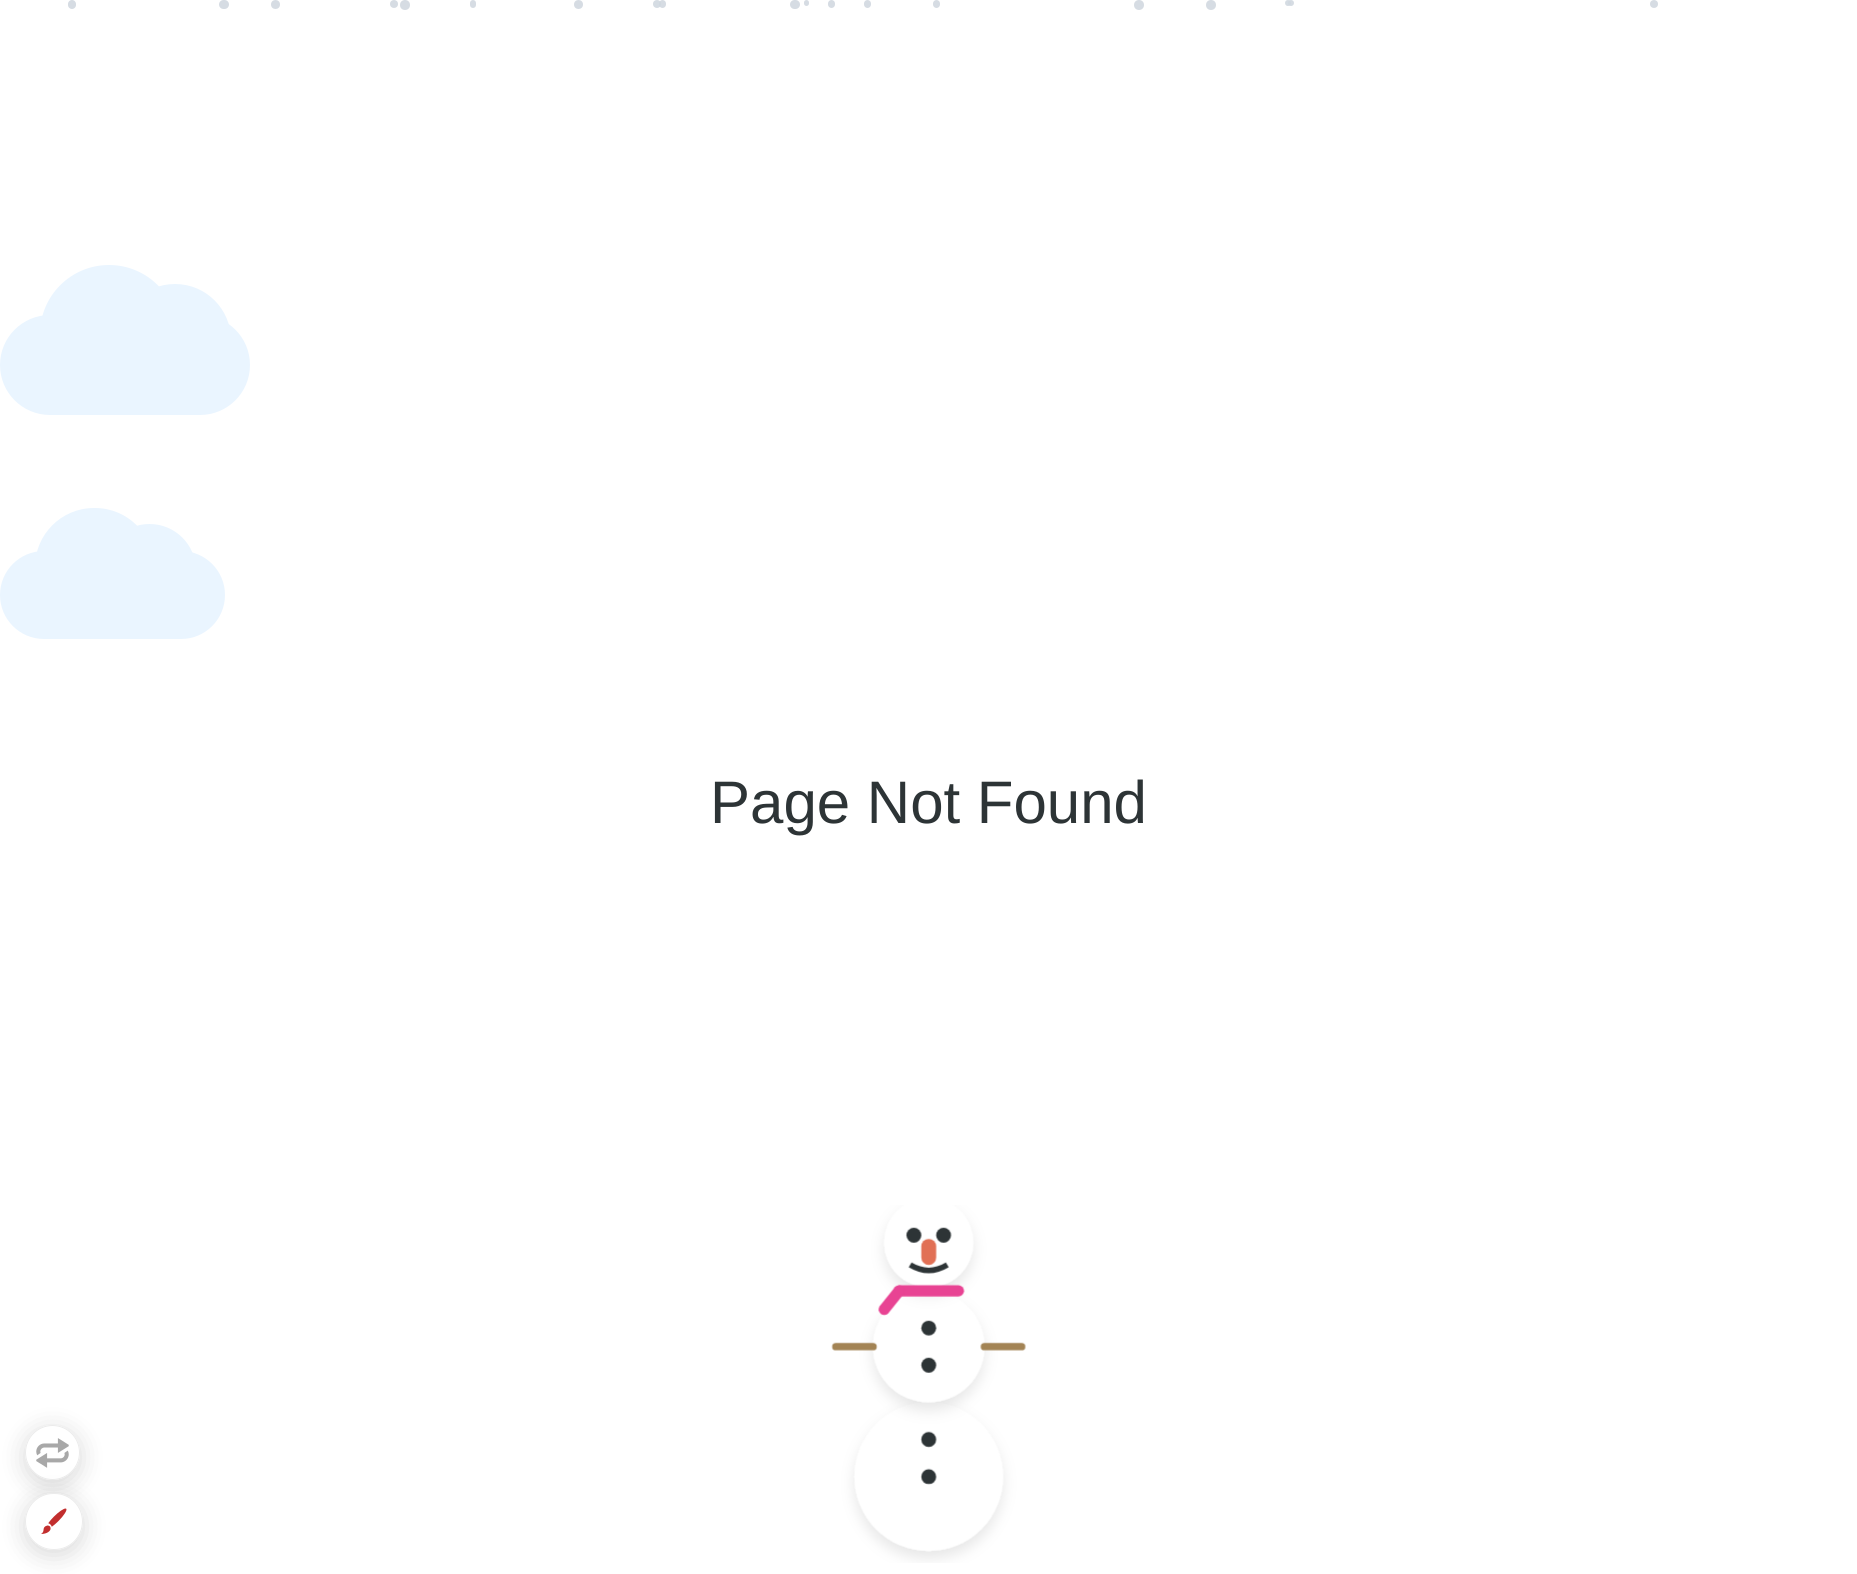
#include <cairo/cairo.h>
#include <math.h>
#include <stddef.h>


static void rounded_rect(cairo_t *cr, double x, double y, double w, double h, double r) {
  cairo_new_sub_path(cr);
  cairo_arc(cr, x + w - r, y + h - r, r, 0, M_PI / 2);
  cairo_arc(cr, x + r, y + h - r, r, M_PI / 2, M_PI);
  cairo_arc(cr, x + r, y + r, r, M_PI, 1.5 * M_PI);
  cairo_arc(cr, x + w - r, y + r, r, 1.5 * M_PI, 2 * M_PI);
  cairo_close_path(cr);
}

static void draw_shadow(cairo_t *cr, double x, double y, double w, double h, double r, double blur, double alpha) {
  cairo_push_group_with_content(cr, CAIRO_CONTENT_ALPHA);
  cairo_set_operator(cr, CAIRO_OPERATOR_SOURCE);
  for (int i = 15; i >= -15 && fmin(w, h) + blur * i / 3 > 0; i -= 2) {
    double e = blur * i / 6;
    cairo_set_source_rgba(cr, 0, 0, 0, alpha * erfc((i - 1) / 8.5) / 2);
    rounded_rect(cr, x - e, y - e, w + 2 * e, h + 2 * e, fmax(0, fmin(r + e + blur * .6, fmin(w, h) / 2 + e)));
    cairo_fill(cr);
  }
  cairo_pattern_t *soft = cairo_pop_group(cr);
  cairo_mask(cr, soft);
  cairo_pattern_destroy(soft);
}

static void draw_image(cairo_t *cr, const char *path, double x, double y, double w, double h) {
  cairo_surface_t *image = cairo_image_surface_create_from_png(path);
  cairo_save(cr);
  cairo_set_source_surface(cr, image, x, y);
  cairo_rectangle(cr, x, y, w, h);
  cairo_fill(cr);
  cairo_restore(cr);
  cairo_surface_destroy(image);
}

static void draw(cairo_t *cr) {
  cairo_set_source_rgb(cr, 1, 1, 1);
  cairo_paint(cr);
  cairo_set_source_rgb(cr, 214 / 255.0, 220 / 255.0, 227 / 255.0);
  rounded_rect(cr, 68, 0, 8, 9, 4);
  cairo_fill(cr);
  rounded_rect(cr, 219, 0, 10, 9, 4.5);
  cairo_fill(cr);
  cairo_arc(cr, 275.5, 4.5, 4.5, 0, 2 * M_PI);
  cairo_fill(cr);
  cairo_arc(cr, 394, 4, 4, 0, 2 * M_PI);
  cairo_fill(cr);
  cairo_arc(cr, 405, 5, 5, 0, 2 * M_PI);
  cairo_fill(cr);
  rounded_rect(cr, 470, 0, 6, 8, 3);
  cairo_fill(cr);
  cairo_arc(cr, 578.5, 4.5, 4.5, 0, 2 * M_PI);
  cairo_fill(cr);
  rounded_rect(cr, 659, 0, 7, 8, 3.5);
  cairo_fill(cr);
  cairo_set_source_rgba(cr, 209 / 255.0, 216 / 255.0, 224 / 255.0, 0.9);
  cairo_arc(cr, 657, 4, 4, 0, 2 * M_PI);
  cairo_fill(cr);
  cairo_set_source_rgb(cr, 214 / 255.0, 220 / 255.0, 227 / 255.0);
  rounded_rect(cr, 790, 0, 10, 9, 4.5);
  cairo_fill(cr);
  rounded_rect(cr, 804, 0, 5, 6, 2.5);
  cairo_fill(cr);
  rounded_rect(cr, 828, 0, 7, 8, 3.5);
  cairo_fill(cr);
  rounded_rect(cr, 864, 0, 7, 8, 3.5);
  cairo_fill(cr);
  rounded_rect(cr, 933, 0, 7, 8, 3.5);
  cairo_fill(cr);
  cairo_arc(cr, 1139, 5, 5, 0, 2 * M_PI);
  cairo_fill(cr);
  cairo_arc(cr, 1211, 5, 5, 0, 2 * M_PI);
  cairo_fill(cr);
  cairo_arc(cr, 1291, 3, 3, 0, 2 * M_PI);
  cairo_fill(cr);
  cairo_set_source_rgba(cr, 209 / 255.0, 216 / 255.0, 224 / 255.0, 0.9);
  cairo_arc(cr, 1288, 3, 3, 0, 2 * M_PI);
  cairo_fill(cr);
  cairo_set_source_rgb(cr, 214 / 255.0, 220 / 255.0, 227 / 255.0);
  cairo_arc(cr, 1654, 4, 4, 0, 2 * M_PI);
  cairo_fill(cr);
  cairo_set_source_rgb(cr, 234 / 255.0, 245 / 255.0, 1);
  rounded_rect(cr, 0, 315, 250, 100, 50);
  cairo_fill(cr);
  cairo_arc(cr, 109, 334, 69, 0, 2 * M_PI);
  cairo_fill(cr);
  cairo_arc(cr, 175, 340, 56, 0, 2 * M_PI);
  cairo_fill(cr);
  rounded_rect(cr, 0, 551, 225, 88, 44);
  cairo_fill(cr);
  rounded_rect(cr, 35, 508, 119, 118, 59);
  cairo_fill(cr);
  rounded_rect(cr, 103, 524, 93, 94, 46.5);
  cairo_fill(cr);
  draw_image(cr, "images/1.png", 831, 1205, 195, 358);
  cairo_save(cr);
  cairo_set_fill_rule(cr, CAIRO_FILL_RULE_EVEN_ODD);
  cairo_new_path(cr);
  cairo_move_to(cr, 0, 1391);
  cairo_line_to(cr, 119, 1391);
  cairo_line_to(cr, 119, 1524);
  cairo_line_to(cr, 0, 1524);
  cairo_close_path(cr);
  cairo_move_to(cr, 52.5, 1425);
  cairo_curve_to(cr, 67.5, 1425, 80, 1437.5, 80, 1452.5);
  cairo_curve_to(cr, 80, 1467.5, 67.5, 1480, 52.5, 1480);
  cairo_curve_to(cr, 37.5, 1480, 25, 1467.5, 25, 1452.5);
  cairo_curve_to(cr, 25, 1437.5, 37.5, 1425, 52.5, 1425);
  cairo_close_path(cr);
  cairo_clip(cr);
  cairo_set_source_rgb(cr, 0, 0, 0);
  draw_shadow(cr, 25, 1430, 55, 55, 27.5, 12.5, 0.15);
  cairo_restore(cr);
  cairo_set_source_rgba(cr, 1, 1, 1, 0.95);
  cairo_arc(cr, 52.5, 1452.5, 27.5, 0, 2 * M_PI);
  cairo_fill(cr);
  cairo_arc(cr, 52.5, 1452.5, 27, 0, 2 * M_PI);
  cairo_set_source_rgba(cr, 0, 0, 0, 0.08);
  cairo_set_line_width(cr, 1);
  cairo_stroke(cr);
  draw_image(cr, "images/2.png", 36, 1438, 33, 30);
  cairo_save(cr);
  cairo_set_fill_rule(cr, CAIRO_FILL_RULE_EVEN_ODD);
  cairo_new_path(cr);
  cairo_move_to(cr, 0, 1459);
  cairo_line_to(cr, 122, 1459);
  cairo_line_to(cr, 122, 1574);
  cairo_line_to(cr, 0, 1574);
  cairo_close_path(cr);
  cairo_move_to(cr, 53.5, 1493);
  cairo_line_to(cr, 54.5, 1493);
  cairo_curve_to(cr, 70, 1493, 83, 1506, 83, 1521.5);
  cairo_curve_to(cr, 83, 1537, 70, 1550, 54.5, 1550);
  cairo_line_to(cr, 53.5, 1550);
  cairo_curve_to(cr, 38, 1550, 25, 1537, 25, 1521.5);
  cairo_curve_to(cr, 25, 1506, 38, 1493, 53.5, 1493);
  cairo_close_path(cr);
  cairo_clip(cr);
  cairo_set_source_rgb(cr, 0, 0, 0);
  draw_shadow(cr, 25, 1498, 58, 57, 28.5, 12.5, 0.15);
  cairo_restore(cr);
  cairo_set_source_rgba(cr, 1, 1, 1, 0.95);
  rounded_rect(cr, 25, 1493, 58, 57, 28.5);
  cairo_fill(cr);
  rounded_rect(cr, 25.5, 1493.5, 57, 56, 28);
  cairo_set_source_rgba(cr, 0, 0, 0, 0.08);
  cairo_stroke(cr);
  draw_image(cr, "images/3.png", 41, 1508, 26, 26);
  cairo_select_font_face(cr, "Liberation Sans", CAIRO_FONT_SLANT_NORMAL, CAIRO_FONT_WEIGHT_NORMAL);
  cairo_set_font_size(cr, 60);
  cairo_set_source_rgb(cr, 45 / 255.0, 52 / 255.0, 54 / 255.0);
  cairo_move_to(cr, 710, 823);
  cairo_show_text(cr, "Page Not Found");
}

int main(void) {
  cairo_surface_t *surface = cairo_image_surface_create(CAIRO_FORMAT_RGB24, 1857, 1574);
  cairo_t *cr = cairo_create(surface);
  cairo_font_options_t *options = cairo_font_options_create();
  cairo_font_options_set_hint_metrics(options, CAIRO_HINT_METRICS_OFF);
  cairo_font_options_set_hint_style(options, CAIRO_HINT_STYLE_NONE);
  cairo_set_font_options(cr, options);
  cairo_set_miter_limit(cr, 4);
  draw(cr);
  cairo_surface_write_to_png(surface, "out.png");
  cairo_font_options_destroy(options);
  cairo_destroy(cr);
  cairo_surface_destroy(surface);
  return 0;
}
